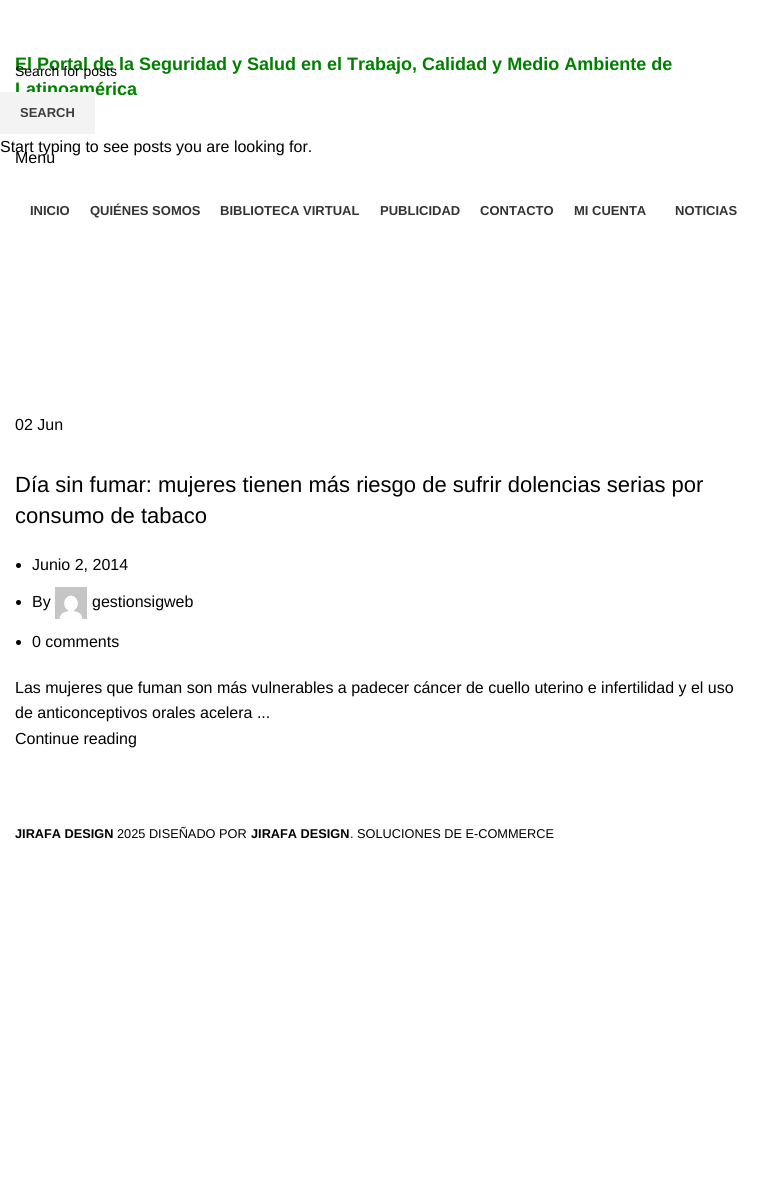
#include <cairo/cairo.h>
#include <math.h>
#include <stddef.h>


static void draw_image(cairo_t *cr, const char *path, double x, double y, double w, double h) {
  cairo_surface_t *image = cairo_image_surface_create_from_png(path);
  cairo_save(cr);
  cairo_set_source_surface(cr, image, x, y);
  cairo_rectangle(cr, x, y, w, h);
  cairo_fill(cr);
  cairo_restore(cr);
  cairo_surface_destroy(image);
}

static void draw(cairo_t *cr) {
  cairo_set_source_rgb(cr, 1, 1, 1);
  cairo_paint(cr);
  cairo_set_source_rgb(cr, 0, 0, 0);
  cairo_arc(cr, 18.5, 565.5, 2.5, 0, 2 * M_PI);
  cairo_fill(cr);
  cairo_arc(cr, 18.5, 602.5, 2.5, 0, 2 * M_PI);
  cairo_fill(cr);
  draw_image(cr, "images/1.png", 55, 587, 32, 32);
  cairo_arc(cr, 18.5, 642.5, 2.5, 0, 2 * M_PI);
  cairo_fill(cr);
  cairo_select_font_face(cr, "Liberation Sans", CAIRO_FONT_SLANT_NORMAL, CAIRO_FONT_WEIGHT_BOLD);
  cairo_set_font_size(cr, 18);
  cairo_set_source_rgb(cr, 0, 128 / 255.0, 0);
  cairo_move_to(cr, 15, 70);
  cairo_show_text(cr, "El Portal de la Seguridad y Salud en el Trabajo, Calidad y Medio Ambiente de");
  cairo_move_to(cr, 15, 95);
  cairo_show_text(cr, "Latinoamérica");
  cairo_select_font_face(cr, "Liberation Sans", CAIRO_FONT_SLANT_NORMAL, CAIRO_FONT_WEIGHT_NORMAL);
  cairo_set_font_size(cr, 16);
  cairo_set_source_rgb(cr, 0, 0, 0);
  cairo_move_to(cr, 15, 163);
  cairo_show_text(cr, "Menu");
  cairo_select_font_face(cr, "Liberation Sans", CAIRO_FONT_SLANT_NORMAL, CAIRO_FONT_WEIGHT_BOLD);
  cairo_set_font_size(cr, 13);
  cairo_set_source_rgb(cr, 51 / 255.0, 51 / 255.0, 51 / 255.0);
  cairo_move_to(cr, 30, 215);
  cairo_show_text(cr, "INICIO");
  cairo_move_to(cr, 90, 215);
  cairo_show_text(cr, "QUIÉNES SOMOS");
  cairo_move_to(cr, 220, 215);
  cairo_show_text(cr, "BIBLIOTECA VIRTUAL");
  cairo_move_to(cr, 380, 215);
  cairo_show_text(cr, "PUBLICIDAD");
  cairo_move_to(cr, 480, 215);
  cairo_show_text(cr, "CONTACTO");
  cairo_move_to(cr, 574, 215);
  cairo_show_text(cr, "MI CUENTA");
  cairo_move_to(cr, 675, 215);
  cairo_show_text(cr, "NOTICIAS");
  cairo_select_font_face(cr, "Liberation Sans", CAIRO_FONT_SLANT_NORMAL, CAIRO_FONT_WEIGHT_NORMAL);
  cairo_set_font_size(cr, 16);
  cairo_set_source_rgb(cr, 0, 0, 0);
  cairo_move_to(cr, 15, 430);
  cairo_show_text(cr, "02 Jun");
  cairo_set_font_size(cr, 22);
  cairo_move_to(cr, 15, 492);
  cairo_show_text(cr, "Día sin fumar: mujeres tienen más riesgo de sufrir dolencias serias por");
  cairo_move_to(cr, 15, 523);
  cairo_show_text(cr, "consumo de tabaco");
  cairo_set_font_size(cr, 16);
  cairo_move_to(cr, 32, 570);
  cairo_show_text(cr, "Junio 2, 2014");
  cairo_move_to(cr, 32, 607);
  cairo_show_text(cr, "By");
  cairo_move_to(cr, 92, 607);
  cairo_show_text(cr, "gestionsigweb");
  cairo_move_to(cr, 32, 647);
  cairo_show_text(cr, "0 comments");
  cairo_move_to(cr, 15, 693);
  cairo_show_text(cr, "Las mujeres que fuman son más vulnerables a padecer cáncer de cuello uterino e infertilidad y el uso");
  cairo_move_to(cr, 15, 718);
  cairo_show_text(cr, "de anticonceptivos orales acelera ...");
  cairo_move_to(cr, 15, 744);
  cairo_show_text(cr, "Continue reading");
  cairo_select_font_face(cr, "Liberation Sans", CAIRO_FONT_SLANT_NORMAL, CAIRO_FONT_WEIGHT_BOLD);
  cairo_set_font_size(cr, 12.75);
  cairo_move_to(cr, 15, 838);
  cairo_show_text(cr, "JIRAFA DESIGN");
  cairo_select_font_face(cr, "Liberation Sans", CAIRO_FONT_SLANT_NORMAL, CAIRO_FONT_WEIGHT_NORMAL);
  cairo_move_to(cr, 117, 838);
  cairo_show_text(cr, "2025 DISEÑADO POR");
  cairo_select_font_face(cr, "Liberation Sans", CAIRO_FONT_SLANT_NORMAL, CAIRO_FONT_WEIGHT_BOLD);
  cairo_move_to(cr, 251, 838);
  cairo_show_text(cr, "JIRAFA DESIGN");
  cairo_select_font_face(cr, "Liberation Sans", CAIRO_FONT_SLANT_NORMAL, CAIRO_FONT_WEIGHT_NORMAL);
  cairo_move_to(cr, 350, 838);
  cairo_show_text(cr, ". SOLUCIONES DE E-COMMERCE");
  cairo_set_font_size(cr, 14);
  cairo_move_to(cr, 15, 76);
  cairo_show_text(cr, "Search for posts");
  cairo_set_source_rgb(cr, 243 / 255.0, 243 / 255.0, 243 / 255.0);
  cairo_rectangle(cr, 0, 92, 95, 42);
  cairo_fill(cr);
  cairo_select_font_face(cr, "Liberation Sans", CAIRO_FONT_SLANT_NORMAL, CAIRO_FONT_WEIGHT_BOLD);
  cairo_set_font_size(cr, 13);
  cairo_set_source_rgb(cr, 62 / 255.0, 62 / 255.0, 62 / 255.0);
  cairo_move_to(cr, 20, 117);
  cairo_show_text(cr, "SEARCH");
  cairo_select_font_face(cr, "Liberation Sans", CAIRO_FONT_SLANT_NORMAL, CAIRO_FONT_WEIGHT_NORMAL);
  cairo_set_font_size(cr, 16);
  cairo_set_source_rgb(cr, 0, 0, 0);
  cairo_move_to(cr, 0, 152);
  cairo_show_text(cr, "Start typing to see posts you are looking for.");
}

int main(void) {
  cairo_surface_t *surface = cairo_image_surface_create(CAIRO_FORMAT_RGB24, 767, 1196);
  cairo_t *cr = cairo_create(surface);
  cairo_font_options_t *options = cairo_font_options_create();
  cairo_font_options_set_hint_metrics(options, CAIRO_HINT_METRICS_OFF);
  cairo_font_options_set_hint_style(options, CAIRO_HINT_STYLE_NONE);
  cairo_set_font_options(cr, options);
  cairo_set_miter_limit(cr, 4);
  draw(cr);
  cairo_surface_write_to_png(surface, "out.png");
  cairo_font_options_destroy(options);
  cairo_destroy(cr);
  cairo_surface_destroy(surface);
  return 0;
}
